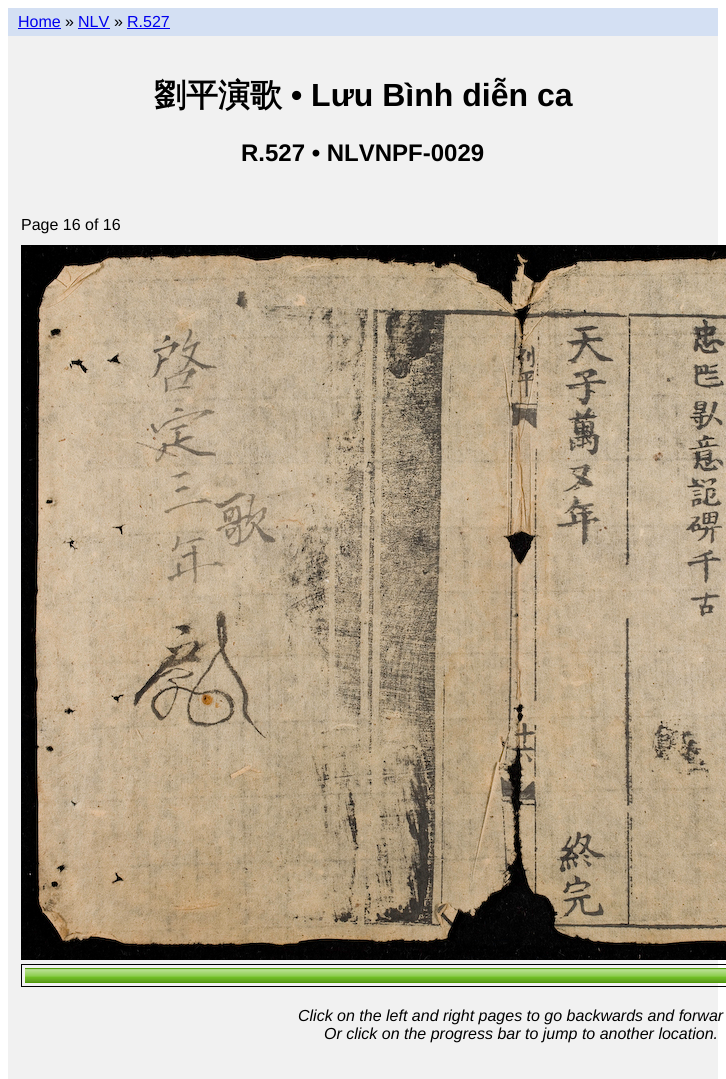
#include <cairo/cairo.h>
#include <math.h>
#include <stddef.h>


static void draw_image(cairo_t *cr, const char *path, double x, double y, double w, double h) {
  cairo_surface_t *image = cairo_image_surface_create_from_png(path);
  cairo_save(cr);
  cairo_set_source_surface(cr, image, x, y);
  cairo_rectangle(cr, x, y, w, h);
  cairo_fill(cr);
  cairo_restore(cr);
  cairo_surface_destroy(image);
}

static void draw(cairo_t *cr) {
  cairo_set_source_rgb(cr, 1, 1, 1);
  cairo_paint(cr);
  cairo_set_source_rgb(cr, 241 / 255.0, 241 / 255.0, 241 / 255.0);
  cairo_rectangle(cr, 8, 36, 710, 1043);
  cairo_fill(cr);
  cairo_set_source_rgb(cr, 212 / 255.0, 224 / 255.0, 243 / 255.0);
  cairo_rectangle(cr, 8, 8, 710, 28);
  cairo_fill(cr);
  cairo_set_source_rgb(cr, 0, 0, 238 / 255.0);
  cairo_rectangle(cr, 18, 28, 43, 1);
  cairo_fill(cr);
  cairo_rectangle(cr, 78, 28, 32, 1);
  cairo_fill(cr);
  cairo_rectangle(cr, 127, 28, 43, 1);
  cairo_fill(cr);
  draw_image(cr, "images/1.png", 21, 245, 705, 715);
  cairo_rectangle(cr, 21.5, 964.5, 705, 22);
  cairo_set_source_rgb(cr, 0, 0, 0);
  cairo_set_line_width(cr, 1);
  cairo_stroke(cr);
  draw_image(cr, "images/2.png", 25, 968, 701, 15);
  cairo_select_font_face(cr, "Liberation Sans", CAIRO_FONT_SLANT_NORMAL, CAIRO_FONT_WEIGHT_NORMAL);
  cairo_set_font_size(cr, 16);
  cairo_set_source_rgb(cr, 0, 0, 238 / 255.0);
  cairo_move_to(cr, 18, 27);
  cairo_show_text(cr, "Home");
  cairo_set_source_rgb(cr, 0, 0, 0);
  cairo_move_to(cr, 65, 27);
  cairo_show_text(cr, "»");
  cairo_set_source_rgb(cr, 0, 0, 238 / 255.0);
  cairo_move_to(cr, 78, 27);
  cairo_show_text(cr, "NLV");
  cairo_set_source_rgb(cr, 0, 0, 0);
  cairo_move_to(cr, 114, 27);
  cairo_show_text(cr, "»");
  cairo_set_source_rgb(cr, 0, 0, 238 / 255.0);
  cairo_move_to(cr, 127, 27);
  cairo_show_text(cr, "R.527");
  cairo_select_font_face(cr, "WenQuanYi Zen Hei", CAIRO_FONT_SLANT_NORMAL, CAIRO_FONT_WEIGHT_BOLD);
  cairo_set_font_size(cr, 32);
  cairo_set_source_rgb(cr, 0, 0, 0);
  cairo_move_to(cr, 154, 106);
  cairo_show_text(cr, "劉平演歌");
  cairo_select_font_face(cr, "Liberation Sans", CAIRO_FONT_SLANT_NORMAL, CAIRO_FONT_WEIGHT_BOLD);
  cairo_move_to(cr, 291, 106);
  cairo_show_text(cr, "• Lưu Bình diễn ca");
  cairo_set_font_size(cr, 24);
  cairo_move_to(cr, 241, 161);
  cairo_show_text(cr, "R.527 • NLVNPF-0029");
  cairo_select_font_face(cr, "Liberation Sans", CAIRO_FONT_SLANT_NORMAL, CAIRO_FONT_WEIGHT_NORMAL);
  cairo_set_font_size(cr, 16);
  cairo_move_to(cr, 21, 230);
  cairo_show_text(cr, "Page 16 of 16");
  cairo_select_font_face(cr, "Liberation Sans", CAIRO_FONT_SLANT_ITALIC, CAIRO_FONT_WEIGHT_NORMAL);
  cairo_move_to(cr, 298, 1021);
  cairo_show_text(cr, "Click on the left and right pages to go backwards and forwar");
  cairo_move_to(cr, 324, 1039);
  cairo_show_text(cr, "Or click on the progress bar to jump to another location.");
}

int main(void) {
  cairo_surface_t *surface = cairo_image_surface_create(CAIRO_FORMAT_RGB24, 726, 1079);
  cairo_t *cr = cairo_create(surface);
  cairo_font_options_t *options = cairo_font_options_create();
  cairo_font_options_set_hint_metrics(options, CAIRO_HINT_METRICS_OFF);
  cairo_font_options_set_hint_style(options, CAIRO_HINT_STYLE_NONE);
  cairo_set_font_options(cr, options);
  cairo_set_miter_limit(cr, 4);
  draw(cr);
  cairo_surface_write_to_png(surface, "out.png");
  cairo_font_options_destroy(options);
  cairo_destroy(cr);
  cairo_surface_destroy(surface);
  return 0;
}
